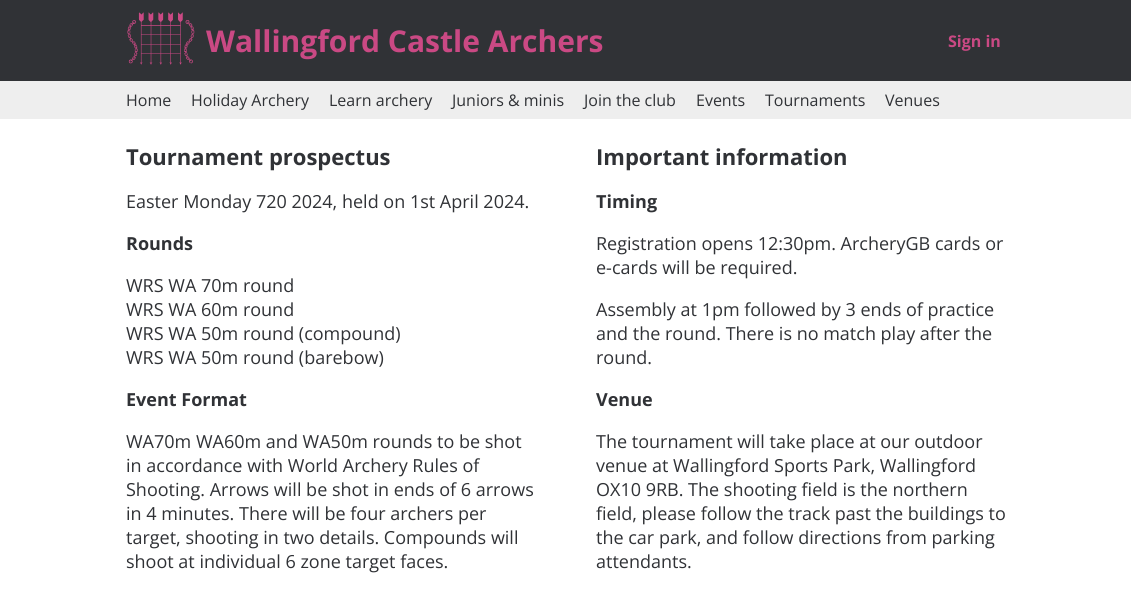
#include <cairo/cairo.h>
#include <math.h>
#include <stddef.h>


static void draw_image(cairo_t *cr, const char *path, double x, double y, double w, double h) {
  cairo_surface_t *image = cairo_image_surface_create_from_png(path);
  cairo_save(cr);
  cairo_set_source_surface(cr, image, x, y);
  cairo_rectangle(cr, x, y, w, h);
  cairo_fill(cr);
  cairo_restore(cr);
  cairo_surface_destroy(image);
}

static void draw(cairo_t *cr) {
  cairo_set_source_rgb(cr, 238 / 255.0, 238 / 255.0, 238 / 255.0);
  cairo_paint(cr);
  cairo_set_source_rgb(cr, 48 / 255.0, 50 / 255.0, 54 / 255.0);
  cairo_rectangle(cr, 0, 0, 1131, 81);
  cairo_fill(cr);
  draw_image(cr, "images/1.png", 127, 12, 68, 53);
  cairo_set_source_rgb(cr, 1, 1, 1);
  cairo_rectangle(cr, 0, 119, 1131, 487);
  cairo_fill(cr);
  cairo_select_font_face(cr, "Open Sans", CAIRO_FONT_SLANT_NORMAL, CAIRO_FONT_WEIGHT_BOLD);
  cairo_set_font_size(cr, 30);
  cairo_set_source_rgb(cr, 202 / 255.0, 73 / 255.0, 132 / 255.0);
  cairo_move_to(cr, 206, 52);
  cairo_show_text(cr, "Wallingford Castle Archers");
  cairo_set_font_size(cr, 16);
  cairo_move_to(cr, 948, 47);
  cairo_show_text(cr, "Sign in");
  cairo_select_font_face(cr, "Open Sans", CAIRO_FONT_SLANT_NORMAL, CAIRO_FONT_WEIGHT_NORMAL);
  cairo_set_source_rgb(cr, 48 / 255.0, 50 / 255.0, 54 / 255.0);
  cairo_move_to(cr, 126, 106);
  cairo_show_text(cr, "Home");
  cairo_move_to(cr, 191, 106);
  cairo_show_text(cr, "Holiday Archery");
  cairo_move_to(cr, 329, 106);
  cairo_show_text(cr, "Learn archery");
  cairo_move_to(cr, 452, 106);
  cairo_show_text(cr, "Juniors & minis");
  cairo_move_to(cr, 584, 106);
  cairo_show_text(cr, "Join the club");
  cairo_move_to(cr, 696, 106);
  cairo_show_text(cr, "Events");
  cairo_move_to(cr, 765, 106);
  cairo_show_text(cr, "Tournaments");
  cairo_move_to(cr, 885, 106);
  cairo_show_text(cr, "Venues");
  cairo_select_font_face(cr, "Open Sans", CAIRO_FONT_SLANT_NORMAL, CAIRO_FONT_WEIGHT_BOLD);
  cairo_set_font_size(cr, 22);
  cairo_move_to(cr, 126, 165);
  cairo_show_text(cr, "Tournament prospectus");
  cairo_select_font_face(cr, "Open Sans", CAIRO_FONT_SLANT_NORMAL, CAIRO_FONT_WEIGHT_NORMAL);
  cairo_set_font_size(cr, 18);
  cairo_move_to(cr, 126, 208);
  cairo_show_text(cr, "Easter Monday 720 2024, held on 1st April 2024.");
  cairo_select_font_face(cr, "Open Sans", CAIRO_FONT_SLANT_NORMAL, CAIRO_FONT_WEIGHT_BOLD);
  cairo_move_to(cr, 126, 250);
  cairo_show_text(cr, "Rounds");
  cairo_select_font_face(cr, "Open Sans", CAIRO_FONT_SLANT_NORMAL, CAIRO_FONT_WEIGHT_NORMAL);
  cairo_move_to(cr, 126, 292);
  cairo_show_text(cr, "WRS WA 70m round");
  cairo_move_to(cr, 126, 316);
  cairo_show_text(cr, "WRS WA 60m round");
  cairo_move_to(cr, 126, 340);
  cairo_show_text(cr, "WRS WA 50m round (compound)");
  cairo_move_to(cr, 126, 364);
  cairo_show_text(cr, "WRS WA 50m round (barebow)");
  cairo_select_font_face(cr, "Open Sans", CAIRO_FONT_SLANT_NORMAL, CAIRO_FONT_WEIGHT_BOLD);
  cairo_move_to(cr, 126, 406);
  cairo_show_text(cr, "Event Format");
  cairo_select_font_face(cr, "Open Sans", CAIRO_FONT_SLANT_NORMAL, CAIRO_FONT_WEIGHT_NORMAL);
  cairo_move_to(cr, 126, 448);
  cairo_show_text(cr, "WA70m WA60m and WA50m rounds to be shot");
  cairo_move_to(cr, 126, 472);
  cairo_show_text(cr, "in accordance with World Archery Rules of");
  cairo_move_to(cr, 126, 496);
  cairo_show_text(cr, "Shooting. Arrows will be shot in ends of 6 arrows");
  cairo_move_to(cr, 126, 520);
  cairo_show_text(cr, "in 4 minutes. There will be four archers per");
  cairo_move_to(cr, 126, 544);
  cairo_show_text(cr, "target, shooting in two details. Compounds will");
  cairo_move_to(cr, 126, 568);
  cairo_show_text(cr, "shoot at individual 6 zone target faces.");
  cairo_select_font_face(cr, "Open Sans", CAIRO_FONT_SLANT_NORMAL, CAIRO_FONT_WEIGHT_BOLD);
  cairo_set_font_size(cr, 22);
  cairo_move_to(cr, 596, 165);
  cairo_show_text(cr, "Important information");
  cairo_set_font_size(cr, 18);
  cairo_move_to(cr, 596, 208);
  cairo_show_text(cr, "Timing");
  cairo_select_font_face(cr, "Open Sans", CAIRO_FONT_SLANT_NORMAL, CAIRO_FONT_WEIGHT_NORMAL);
  cairo_move_to(cr, 596, 250);
  cairo_show_text(cr, "Registration opens 12:30pm. ArcheryGB cards or");
  cairo_move_to(cr, 596, 274);
  cairo_show_text(cr, "e-cards will be required.");
  cairo_move_to(cr, 596, 316);
  cairo_show_text(cr, "Assembly at 1pm followed by 3 ends of practice");
  cairo_move_to(cr, 596, 340);
  cairo_show_text(cr, "and the round. There is no match play after the");
  cairo_move_to(cr, 596, 364);
  cairo_show_text(cr, "round.");
  cairo_select_font_face(cr, "Open Sans", CAIRO_FONT_SLANT_NORMAL, CAIRO_FONT_WEIGHT_BOLD);
  cairo_move_to(cr, 596, 406);
  cairo_show_text(cr, "Venue");
  cairo_select_font_face(cr, "Open Sans", CAIRO_FONT_SLANT_NORMAL, CAIRO_FONT_WEIGHT_NORMAL);
  cairo_move_to(cr, 596, 448);
  cairo_show_text(cr, "The tournament will take place at our outdoor");
  cairo_move_to(cr, 596, 472);
  cairo_show_text(cr, "venue at Wallingford Sports Park, Wallingford");
  cairo_move_to(cr, 596, 496);
  cairo_show_text(cr, "OX10 9RB. The shooting field is the northern");
  cairo_move_to(cr, 596, 520);
  cairo_show_text(cr, "field, please follow the track past the buildings to");
  cairo_move_to(cr, 596, 544);
  cairo_show_text(cr, "the car park, and follow directions from parking");
  cairo_move_to(cr, 596, 568);
  cairo_show_text(cr, "attendants.");
}

int main(void) {
  cairo_surface_t *surface = cairo_image_surface_create(CAIRO_FORMAT_RGB24, 1131, 606);
  cairo_t *cr = cairo_create(surface);
  cairo_font_options_t *options = cairo_font_options_create();
  cairo_font_options_set_hint_metrics(options, CAIRO_HINT_METRICS_OFF);
  cairo_font_options_set_hint_style(options, CAIRO_HINT_STYLE_NONE);
  cairo_set_font_options(cr, options);
  cairo_set_miter_limit(cr, 4);
  draw(cr);
  cairo_surface_write_to_png(surface, "out.png");
  cairo_font_options_destroy(options);
  cairo_destroy(cr);
  cairo_surface_destroy(surface);
  return 0;
}
